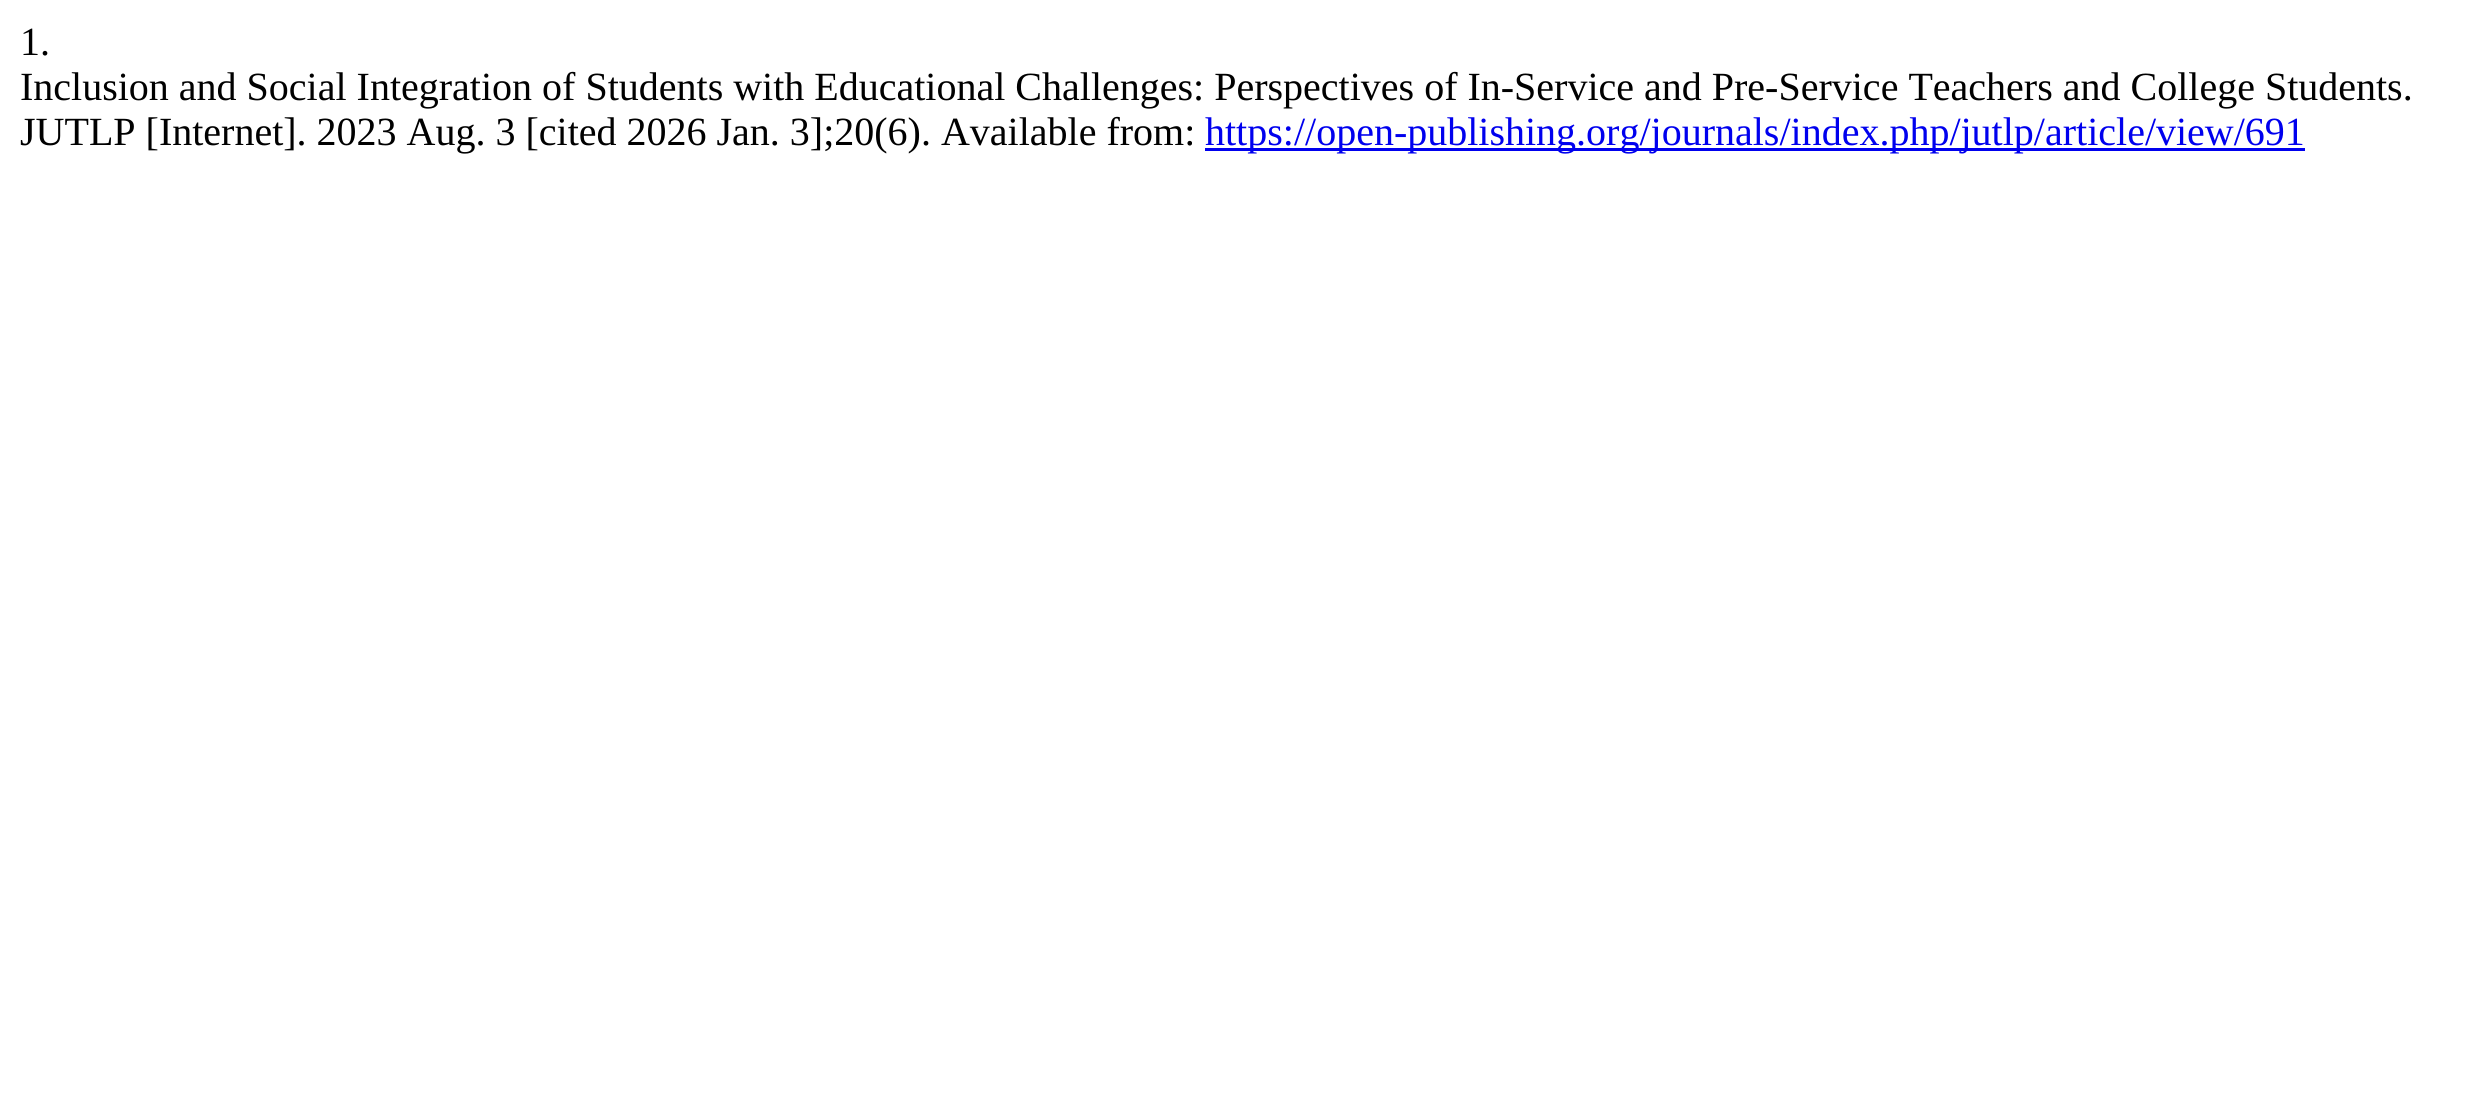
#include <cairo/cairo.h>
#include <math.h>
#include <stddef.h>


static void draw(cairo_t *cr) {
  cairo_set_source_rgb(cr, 1, 1, 1);
  cairo_paint(cr);
  cairo_set_source_rgb(cr, 0, 0, 238 / 255.0);
  cairo_rectangle(cr, 1205, 148, 1100, 3);
  cairo_fill(cr);
  cairo_select_font_face(cr, "Liberation Serif", CAIRO_FONT_SLANT_NORMAL, CAIRO_FONT_WEIGHT_NORMAL);
  cairo_set_font_size(cr, 40);
  cairo_set_source_rgb(cr, 0, 0, 0);
  cairo_move_to(cr, 20, 55);
  cairo_show_text(cr, "1.");
  cairo_move_to(cr, 20, 100);
  cairo_show_text(cr, "Inclusion and Social Integration of Students with Educational Challenges: Perspectives of In-Service and Pre-Service Teachers and College Students.");
  cairo_move_to(cr, 20, 145);
  cairo_show_text(cr, "JUTLP [Internet]. 2023 Aug. 3 [cited 2026 Jan. 3];20(6). Available from:");
  cairo_set_source_rgb(cr, 0, 0, 238 / 255.0);
  cairo_move_to(cr, 1205, 145);
  cairo_show_text(cr, "https://open-publishing.org/journals/index.php/jutlp/article/view/691");
}

int main(void) {
  cairo_surface_t *surface = cairo_image_surface_create(CAIRO_FORMAT_RGB24, 2476, 1101);
  cairo_t *cr = cairo_create(surface);
  cairo_font_options_t *options = cairo_font_options_create();
  cairo_font_options_set_hint_metrics(options, CAIRO_HINT_METRICS_OFF);
  cairo_font_options_set_hint_style(options, CAIRO_HINT_STYLE_NONE);
  cairo_set_font_options(cr, options);
  cairo_set_miter_limit(cr, 4);
  draw(cr);
  cairo_surface_write_to_png(surface, "out.png");
  cairo_font_options_destroy(options);
  cairo_destroy(cr);
  cairo_surface_destroy(surface);
  return 0;
}
